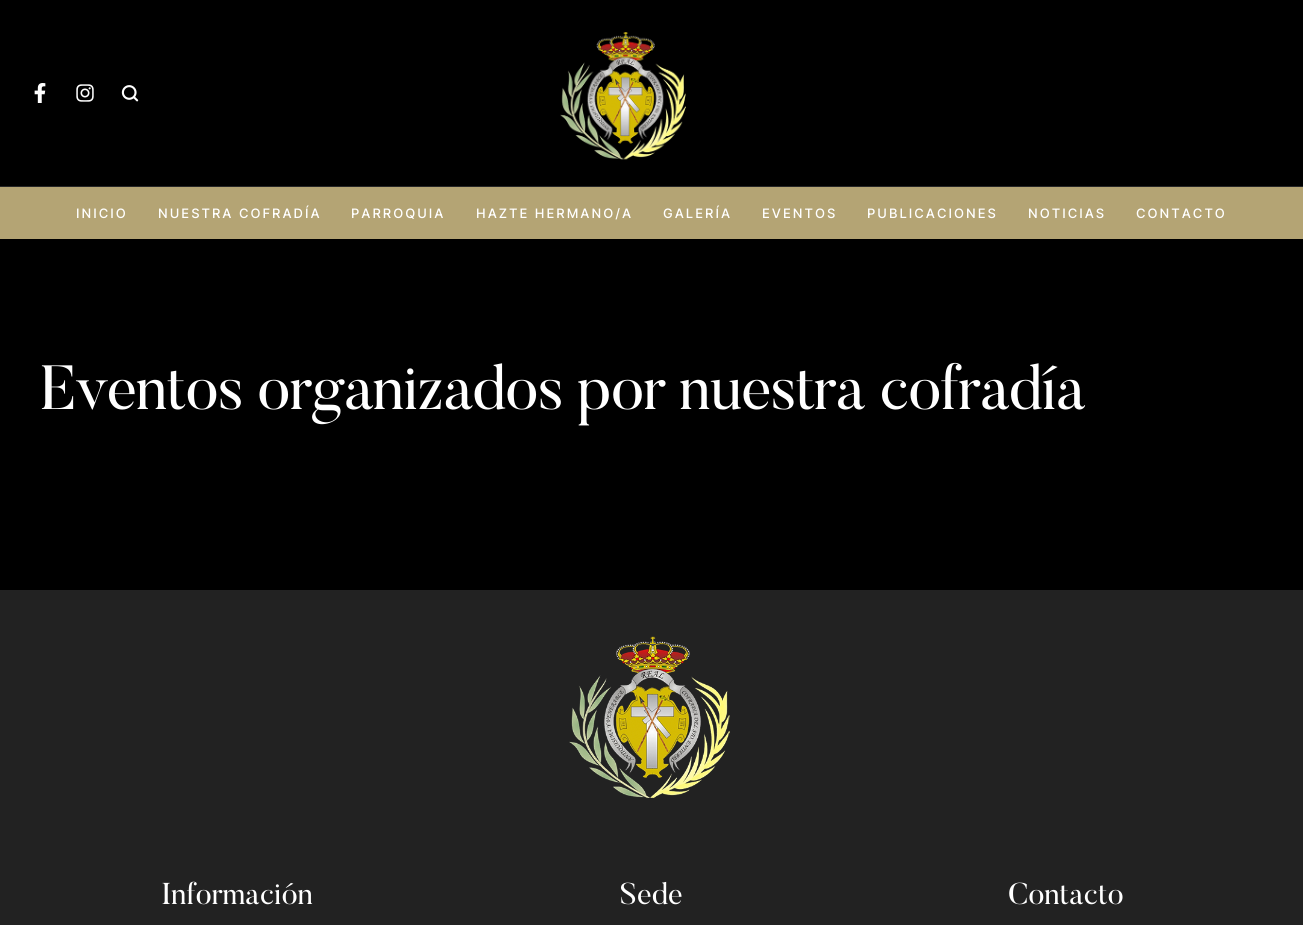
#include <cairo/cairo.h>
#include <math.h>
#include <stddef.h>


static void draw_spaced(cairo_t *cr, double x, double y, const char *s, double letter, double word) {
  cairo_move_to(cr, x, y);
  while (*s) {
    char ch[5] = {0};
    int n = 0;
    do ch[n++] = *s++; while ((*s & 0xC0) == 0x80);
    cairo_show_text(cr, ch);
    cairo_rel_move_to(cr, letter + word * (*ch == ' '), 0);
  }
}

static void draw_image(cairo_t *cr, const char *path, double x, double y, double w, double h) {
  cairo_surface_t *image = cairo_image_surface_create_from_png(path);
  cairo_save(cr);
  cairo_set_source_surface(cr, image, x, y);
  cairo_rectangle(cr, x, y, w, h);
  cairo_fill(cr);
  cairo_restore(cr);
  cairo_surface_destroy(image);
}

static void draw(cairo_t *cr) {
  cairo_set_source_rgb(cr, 0, 0, 0);
  cairo_paint(cr);
  cairo_set_source_rgb(cr, 38 / 255.0, 38 / 255.0, 38 / 255.0);
  cairo_rectangle(cr, 0, 186, 1303, 1);
  cairo_fill(cr);
  draw_image(cr, "images/1.png", 34, 83, 12, 20);
  draw_image(cr, "images/2.png", 76, 84, 18, 18);
  draw_image(cr, "images/3.png", 121, 85, 18, 17);
  draw_image(cr, "images/4.png", 560, 32, 126, 128);
  cairo_set_source_rgb(cr, 180 / 255.0, 164 / 255.0, 116 / 255.0);
  cairo_rectangle(cr, 0, 187, 1303, 52);
  cairo_fill(cr);
  cairo_set_source_rgb(cr, 34 / 255.0, 34 / 255.0, 34 / 255.0);
  cairo_rectangle(cr, 0, 590, 1303, 335);
  cairo_fill(cr);
  draw_image(cr, "images/5.png", 569, 636, 161, 162);
  cairo_select_font_face(cr, "Inter Medium", CAIRO_FONT_SLANT_NORMAL, CAIRO_FONT_WEIGHT_NORMAL);
  cairo_set_font_size(cr, 13);
  cairo_set_source_rgb(cr, 1, 1, 1);
  draw_spaced(cr, 76, 218, "INICIO", 2, 0);
  draw_spaced(cr, 158, 218, "NUESTRA COFRADÍA", 2, 0);
  draw_spaced(cr, 351, 218, "PARROQUIA", 2, 0);
  draw_spaced(cr, 476, 218, "HAZTE HERMANO/A", 2, 0);
  draw_spaced(cr, 663, 218, "GALERÍA", 2, 0);
  draw_spaced(cr, 762, 218, "EVENTOS", 2, 0);
  draw_spaced(cr, 867, 218, "PUBLICACIONES", 2, 0);
  draw_spaced(cr, 1028, 218, "NOTICIAS", 2, 0);
  draw_spaced(cr, 1136, 218, "CONTACTO", 2, 0);
  cairo_select_font_face(cr, "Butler", CAIRO_FONT_SLANT_NORMAL, CAIRO_FONT_WEIGHT_NORMAL);
  cairo_set_font_size(cr, 62);
  draw_spaced(cr, 40, 409, "Eventos organizados por nuestra cofradía", -1, 0);
  cairo_set_font_size(cr, 30);
  cairo_move_to(cr, 161, 904);
  cairo_show_text(cr, "Información");
  cairo_move_to(cr, 620, 904);
  cairo_show_text(cr, "Sede");
  cairo_move_to(cr, 1008, 904);
  cairo_show_text(cr, "Contacto");
}

int main(void) {
  cairo_surface_t *surface = cairo_image_surface_create(CAIRO_FORMAT_RGB24, 1303, 925);
  cairo_t *cr = cairo_create(surface);
  cairo_font_options_t *options = cairo_font_options_create();
  cairo_font_options_set_hint_metrics(options, CAIRO_HINT_METRICS_OFF);
  cairo_font_options_set_hint_style(options, CAIRO_HINT_STYLE_NONE);
  cairo_set_font_options(cr, options);
  cairo_set_miter_limit(cr, 4);
  draw(cr);
  cairo_surface_write_to_png(surface, "out.png");
  cairo_font_options_destroy(options);
  cairo_destroy(cr);
  cairo_surface_destroy(surface);
  return 0;
}
